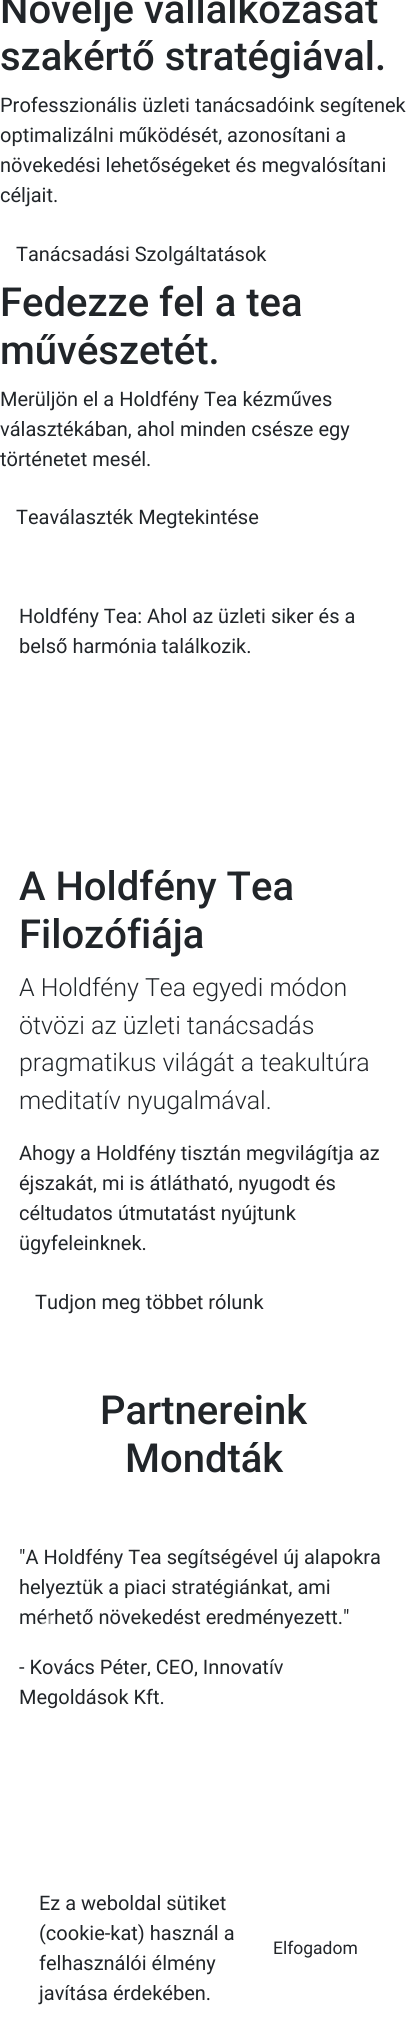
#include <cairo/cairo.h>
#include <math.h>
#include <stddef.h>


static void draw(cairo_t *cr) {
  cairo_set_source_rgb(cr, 1, 1, 1);
  cairo_paint(cr);
  cairo_select_font_face(cr, "Roboto Medium", CAIRO_FONT_SLANT_NORMAL, CAIRO_FONT_WEIGHT_NORMAL);
  cairo_set_font_size(cr, 40);
  cairo_set_source_rgb(cr, 33 / 255.0, 37 / 255.0, 41 / 255.0);
  cairo_move_to(cr, 0, 23);
  cairo_show_text(cr, "Növelje vállalkozását");
  cairo_move_to(cr, 0, 70);
  cairo_show_text(cr, "szakértő stratégiával.");
  cairo_select_font_face(cr, "Roboto", CAIRO_FONT_SLANT_NORMAL, CAIRO_FONT_WEIGHT_NORMAL);
  cairo_set_font_size(cr, 20);
  cairo_move_to(cr, 0, 112);
  cairo_show_text(cr, "Professzionális üzleti tanácsadóink segítenek");
  cairo_move_to(cr, 0, 142);
  cairo_show_text(cr, "optimalizálni működését, azonosítani a");
  cairo_move_to(cr, 0, 172);
  cairo_show_text(cr, "növekedési lehetőségeket és megvalósítani");
  cairo_move_to(cr, 0, 202);
  cairo_show_text(cr, "céljait.");
  cairo_move_to(cr, 16, 261);
  cairo_show_text(cr, "Tanácsadási Szolgáltatások");
  cairo_select_font_face(cr, "Roboto Medium", CAIRO_FONT_SLANT_NORMAL, CAIRO_FONT_WEIGHT_NORMAL);
  cairo_set_font_size(cr, 40);
  cairo_move_to(cr, 0, 316);
  cairo_show_text(cr, "Fedezze fel a tea");
  cairo_move_to(cr, 0, 364);
  cairo_show_text(cr, "művészetét.");
  cairo_select_font_face(cr, "Roboto", CAIRO_FONT_SLANT_NORMAL, CAIRO_FONT_WEIGHT_NORMAL);
  cairo_set_font_size(cr, 20);
  cairo_move_to(cr, 0, 406);
  cairo_show_text(cr, "Merüljön el a Holdfény Tea kézműves");
  cairo_move_to(cr, 0, 436);
  cairo_show_text(cr, "választékában, ahol minden csésze egy");
  cairo_move_to(cr, 0, 466);
  cairo_show_text(cr, "történetet mesél.");
  cairo_move_to(cr, 16, 524);
  cairo_show_text(cr, "Teaválaszték Megtekintése");
  cairo_move_to(cr, 19, 623);
  cairo_show_text(cr, "Holdfény Tea: Ahol az üzleti siker és a");
  cairo_move_to(cr, 19, 653);
  cairo_show_text(cr, "belső harmónia találkozik.");
  cairo_select_font_face(cr, "Roboto Medium", CAIRO_FONT_SLANT_NORMAL, CAIRO_FONT_WEIGHT_NORMAL);
  cairo_set_font_size(cr, 40);
  cairo_move_to(cr, 19, 900);
  cairo_show_text(cr, "A Holdfény Tea");
  cairo_move_to(cr, 19, 948);
  cairo_show_text(cr, "Filozófiája");
  cairo_select_font_face(cr, "Roboto Light", CAIRO_FONT_SLANT_NORMAL, CAIRO_FONT_WEIGHT_NORMAL);
  cairo_set_font_size(cr, 25);
  cairo_move_to(cr, 19, 996);
  cairo_show_text(cr, "A Holdfény Tea egyedi módon");
  cairo_move_to(cr, 19, 1034);
  cairo_show_text(cr, "ötvözi az üzleti tanácsadás");
  cairo_move_to(cr, 19, 1071);
  cairo_show_text(cr, "pragmatikus világát a teakultúra");
  cairo_move_to(cr, 19, 1109);
  cairo_show_text(cr, "meditatív nyugalmával.");
  cairo_select_font_face(cr, "Roboto", CAIRO_FONT_SLANT_NORMAL, CAIRO_FONT_WEIGHT_NORMAL);
  cairo_set_font_size(cr, 20);
  cairo_move_to(cr, 19, 1160);
  cairo_show_text(cr, "Ahogy a Holdfény tisztán megvilágítja az");
  cairo_move_to(cr, 19, 1190);
  cairo_show_text(cr, "éjszakát, mi is átlátható, nyugodt és");
  cairo_move_to(cr, 19, 1220);
  cairo_show_text(cr, "céltudatos útmutatást nyújtunk");
  cairo_move_to(cr, 19, 1250);
  cairo_show_text(cr, "ügyfeleinknek.");
  cairo_move_to(cr, 35, 1309);
  cairo_show_text(cr, "Tudjon meg többet rólunk");
  cairo_select_font_face(cr, "Roboto Medium", CAIRO_FONT_SLANT_NORMAL, CAIRO_FONT_WEIGHT_NORMAL);
  cairo_set_font_size(cr, 40);
  cairo_move_to(cr, 100, 1424);
  cairo_show_text(cr, "Partnereink");
  cairo_move_to(cr, 125, 1472);
  cairo_show_text(cr, "Mondták");
  cairo_select_font_face(cr, "Roboto", CAIRO_FONT_SLANT_NORMAL, CAIRO_FONT_WEIGHT_NORMAL);
  cairo_set_font_size(cr, 20);
  cairo_move_to(cr, 19, 1564);
  cairo_show_text(cr, "\"A Holdfény Tea segítségével új alapokra");
  cairo_move_to(cr, 19, 1594);
  cairo_show_text(cr, "helyeztük a piaci stratégiánkat, ami");
  cairo_move_to(cr, 19, 1624);
  cairo_show_text(cr, "mérhető növekedést eredményezett.\"");
  cairo_move_to(cr, 19, 1674);
  cairo_show_text(cr, "- Kovács Péter, CEO, Innovatív");
  cairo_move_to(cr, 19, 1704);
  cairo_show_text(cr, "Megoldások Kft.");
  cairo_set_source_rgba(cr, 1, 1, 1, 0.5);
  cairo_new_path(cr);
  cairo_move_to(cr, 50, 1615);
  cairo_line_to(cr, 37.5, 1627.5);
  cairo_line_to(cr, 50, 1640);
  cairo_line_to(cr, 55, 1635.5);
  cairo_line_to(cr, 47, 1627.5);
  cairo_line_to(cr, 55, 1619.5);
  cairo_close_path(cr);
  cairo_fill(cr);
  cairo_set_source_rgb(cr, 1, 1, 1);
  cairo_rectangle(cr, 140, 1676, 9, 1);
  cairo_fill(cr);
  cairo_set_source_rgba(cr, 1, 1, 1, 0.5);
  cairo_rectangle(cr, 194, 1676, 2, 1);
  cairo_fill(cr);
  cairo_set_source_rgb(cr, 33 / 255.0, 37 / 255.0, 41 / 255.0);
  cairo_move_to(cr, 39, 1910);
  cairo_show_text(cr, "Ez a weboldal sütiket");
  cairo_move_to(cr, 39, 1940);
  cairo_show_text(cr, "(cookie-kat) használ a");
  cairo_move_to(cr, 39, 1970);
  cairo_show_text(cr, "felhasználói élmény");
  cairo_move_to(cr, 39, 2000);
  cairo_show_text(cr, "javítása érdekében.");
  cairo_set_font_size(cr, 17.5);
  cairo_move_to(cr, 273, 1954);
  cairo_show_text(cr, "Elfogadom");
}

int main(void) {
  cairo_surface_t *surface = cairo_image_surface_create(CAIRO_FORMAT_RGB24, 407, 2028);
  cairo_t *cr = cairo_create(surface);
  cairo_font_options_t *options = cairo_font_options_create();
  cairo_font_options_set_hint_metrics(options, CAIRO_HINT_METRICS_OFF);
  cairo_font_options_set_hint_style(options, CAIRO_HINT_STYLE_NONE);
  cairo_set_font_options(cr, options);
  cairo_set_miter_limit(cr, 4);
  draw(cr);
  cairo_surface_write_to_png(surface, "out.png");
  cairo_font_options_destroy(options);
  cairo_destroy(cr);
  cairo_surface_destroy(surface);
  return 0;
}
